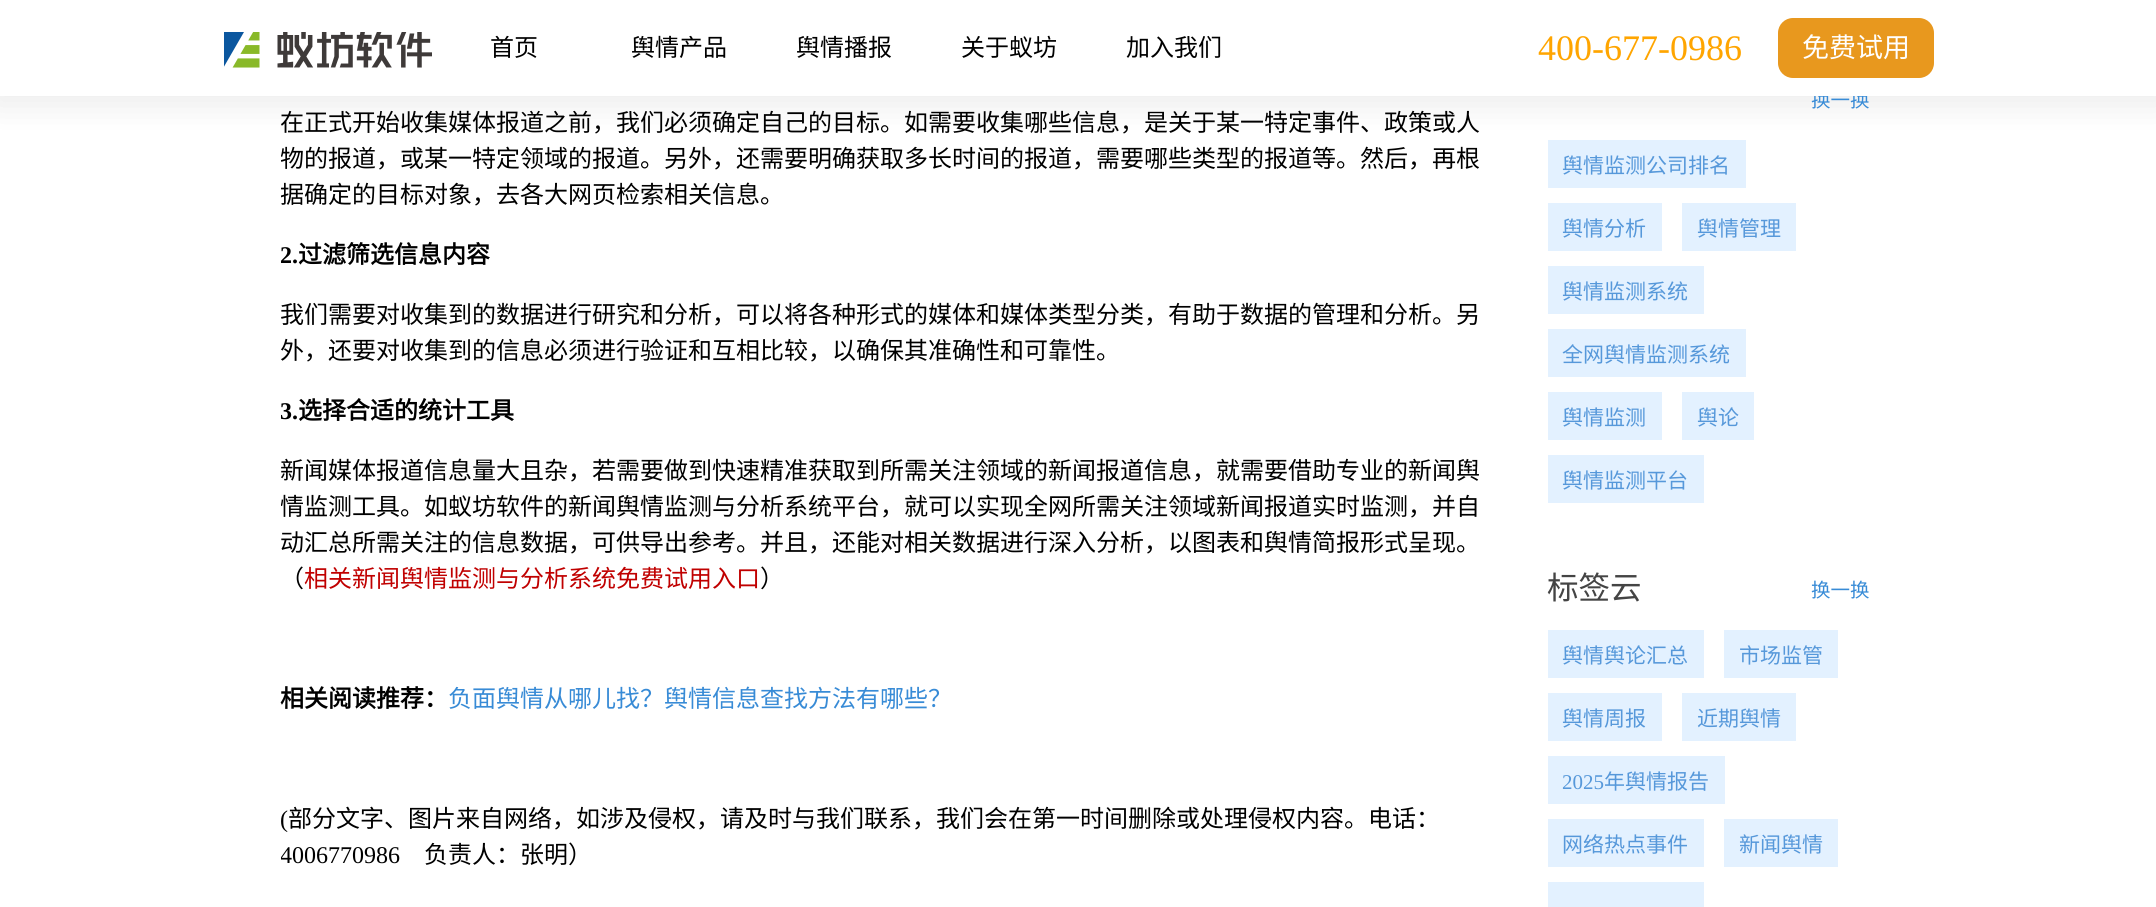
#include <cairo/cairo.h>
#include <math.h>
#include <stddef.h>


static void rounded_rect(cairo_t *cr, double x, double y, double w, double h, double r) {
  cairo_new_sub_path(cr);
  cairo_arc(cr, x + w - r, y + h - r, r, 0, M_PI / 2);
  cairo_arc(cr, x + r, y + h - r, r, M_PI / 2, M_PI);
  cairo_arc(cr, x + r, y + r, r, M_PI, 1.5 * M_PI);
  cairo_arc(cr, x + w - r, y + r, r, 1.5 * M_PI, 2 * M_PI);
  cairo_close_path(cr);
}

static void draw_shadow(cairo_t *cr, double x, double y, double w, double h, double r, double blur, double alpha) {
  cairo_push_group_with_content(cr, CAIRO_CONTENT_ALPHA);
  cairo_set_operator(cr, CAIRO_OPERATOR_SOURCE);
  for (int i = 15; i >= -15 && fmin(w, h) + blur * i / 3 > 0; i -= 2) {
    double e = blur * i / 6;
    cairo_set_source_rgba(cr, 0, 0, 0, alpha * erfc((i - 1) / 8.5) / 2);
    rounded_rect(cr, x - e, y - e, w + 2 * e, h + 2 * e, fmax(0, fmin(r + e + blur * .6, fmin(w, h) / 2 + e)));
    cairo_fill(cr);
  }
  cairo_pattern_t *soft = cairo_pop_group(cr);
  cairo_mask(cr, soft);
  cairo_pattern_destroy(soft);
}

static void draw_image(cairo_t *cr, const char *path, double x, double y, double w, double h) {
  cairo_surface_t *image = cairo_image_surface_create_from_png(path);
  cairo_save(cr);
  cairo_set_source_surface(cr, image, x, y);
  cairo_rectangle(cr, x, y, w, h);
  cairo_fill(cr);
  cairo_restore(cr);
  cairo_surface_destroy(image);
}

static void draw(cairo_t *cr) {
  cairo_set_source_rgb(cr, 1, 1, 1);
  cairo_paint(cr);
  cairo_set_source_rgb(cr, 227 / 255.0, 241 / 255.0, 1);
  cairo_rectangle(cr, 1548, 140, 198, 48);
  cairo_fill(cr);
  cairo_set_source_rgb(cr, 0, 0, 0);
  draw_shadow(cr, -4, 0, 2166, 105, 0, 16.5, 0.08);
  cairo_set_source_rgb(cr, 227 / 255.0, 241 / 255.0, 1);
  cairo_rectangle(cr, 1548, 203, 114, 48);
  cairo_fill(cr);
  cairo_rectangle(cr, 1682, 203, 114, 48);
  cairo_fill(cr);
  cairo_rectangle(cr, 1548, 266, 156, 48);
  cairo_fill(cr);
  cairo_rectangle(cr, 1548, 329, 198, 48);
  cairo_fill(cr);
  cairo_rectangle(cr, 1548, 392, 114, 48);
  cairo_fill(cr);
  cairo_rectangle(cr, 1682, 392, 72, 48);
  cairo_fill(cr);
  cairo_rectangle(cr, 1548, 455, 156, 48);
  cairo_fill(cr);
  cairo_rectangle(cr, 1548, 630, 156, 48);
  cairo_fill(cr);
  cairo_rectangle(cr, 1724, 630, 114, 48);
  cairo_fill(cr);
  cairo_rectangle(cr, 1548, 693, 114, 48);
  cairo_fill(cr);
  cairo_rectangle(cr, 1682, 693, 114, 48);
  cairo_fill(cr);
  cairo_rectangle(cr, 1548, 756, 177, 48);
  cairo_fill(cr);
  cairo_rectangle(cr, 1548, 819, 156, 48);
  cairo_fill(cr);
  cairo_rectangle(cr, 1724, 819, 114, 48);
  cairo_fill(cr);
  cairo_rectangle(cr, 1548, 882, 156, 25);
  cairo_fill(cr);
  cairo_select_font_face(cr, "Noto Sans CJK SC", CAIRO_FONT_SLANT_NORMAL, CAIRO_FONT_WEIGHT_NORMAL);
  cairo_set_font_size(cr, 24);
  cairo_set_source_rgb(cr, 0, 0, 0);
  cairo_move_to(cr, 280, 131);
  cairo_show_text(cr, "在正式开始收集媒体报道之前，我们必须确定自己的目标。如需要收集哪些信息，是关于某一特定事件、政策或人");
  cairo_save(cr);
  cairo_rectangle(cr, 281, 0, 1597, 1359);
  cairo_clip(cr);
  cairo_move_to(cr, 280, 167);
  cairo_show_text(cr, "物的报道，或某一特定领域的报道。另外，还需要明确获取多长时间的报道，需要哪些类型的报道等。然后，再根");
  cairo_move_to(cr, 280, 203);
  cairo_show_text(cr, "据确定的目标对象，去各大网页检索相关信息。");
  cairo_select_font_face(cr, "Liberation Serif", CAIRO_FONT_SLANT_NORMAL, CAIRO_FONT_WEIGHT_BOLD);
  cairo_move_to(cr, 280, 263);
  cairo_show_text(cr, "2.");
  cairo_restore(cr);
  cairo_select_font_face(cr, "Noto Sans CJK SC", CAIRO_FONT_SLANT_NORMAL, CAIRO_FONT_WEIGHT_BOLD);
  cairo_move_to(cr, 298, 263);
  cairo_show_text(cr, "过滤筛选信息内容");
  cairo_select_font_face(cr, "Noto Sans CJK SC", CAIRO_FONT_SLANT_NORMAL, CAIRO_FONT_WEIGHT_NORMAL);
  cairo_move_to(cr, 280, 323);
  cairo_show_text(cr, "我们需要对收集到的数据进行研究和分析，可以将各种形式的媒体和媒体类型分类，有助于数据的管理和分析。另");
  cairo_move_to(cr, 280, 359);
  cairo_show_text(cr, "外，还要对收集到的信息必须进行验证和互相比较，以确保其准确性和可靠性。");
  cairo_save(cr);
  cairo_rectangle(cr, 281, 0, 1597, 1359);
  cairo_clip(cr);
  cairo_select_font_face(cr, "Liberation Serif", CAIRO_FONT_SLANT_NORMAL, CAIRO_FONT_WEIGHT_BOLD);
  cairo_move_to(cr, 280, 419);
  cairo_show_text(cr, "3.");
  cairo_restore(cr);
  cairo_select_font_face(cr, "Noto Sans CJK SC", CAIRO_FONT_SLANT_NORMAL, CAIRO_FONT_WEIGHT_BOLD);
  cairo_move_to(cr, 298, 419);
  cairo_show_text(cr, "选择合适的统计工具");
  cairo_select_font_face(cr, "Noto Sans CJK SC", CAIRO_FONT_SLANT_NORMAL, CAIRO_FONT_WEIGHT_NORMAL);
  cairo_move_to(cr, 280, 479);
  cairo_show_text(cr, "新闻媒体报道信息量大且杂，若需要做到快速精准获取到所需关注领域的新闻报道信息，就需要借助专业的新闻舆");
  cairo_save(cr);
  cairo_rectangle(cr, 281, 0, 1597, 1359);
  cairo_clip(cr);
  cairo_move_to(cr, 280, 515);
  cairo_show_text(cr, "情监测工具。如蚁坊软件的新闻舆情监测与分析系统平台，就可以实现全网所需关注领域新闻报道实时监测，并自");
  cairo_restore(cr);
  cairo_move_to(cr, 280, 551);
  cairo_show_text(cr, "动汇总所需关注的信息数据，可供导出参考。并且，还能对相关数据进行深入分析，以图表和舆情简报形式呈现。");
  cairo_move_to(cr, 280, 587);
  cairo_show_text(cr, "（");
  cairo_set_source_rgb(cr, 192 / 255.0, 0, 0);
  cairo_move_to(cr, 304, 587);
  cairo_show_text(cr, "相关新闻舆情监测与分析系统免费试用入口");
  cairo_set_source_rgb(cr, 0, 0, 0);
  cairo_move_to(cr, 760, 587);
  cairo_show_text(cr, "）");
  cairo_select_font_face(cr, "Noto Sans CJK SC", CAIRO_FONT_SLANT_NORMAL, CAIRO_FONT_WEIGHT_BOLD);
  cairo_move_to(cr, 280, 707);
  cairo_show_text(cr, "相关阅读推荐：");
  cairo_select_font_face(cr, "Noto Sans CJK SC", CAIRO_FONT_SLANT_NORMAL, CAIRO_FONT_WEIGHT_NORMAL);
  cairo_set_source_rgb(cr, 56 / 255.0, 139 / 255.0, 214 / 255.0);
  cairo_move_to(cr, 448, 707);
  cairo_show_text(cr, "负面舆情从哪儿找？舆情信息查找方法有哪些？");
  cairo_save(cr);
  cairo_rectangle(cr, 281, 0, 1597, 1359);
  cairo_clip(cr);
  cairo_select_font_face(cr, "Liberation Serif", CAIRO_FONT_SLANT_NORMAL, CAIRO_FONT_WEIGHT_NORMAL);
  cairo_set_source_rgb(cr, 0, 0, 0);
  cairo_move_to(cr, 280, 827);
  cairo_show_text(cr, "(");
  cairo_restore(cr);
  cairo_set_source_rgb(cr, 0, 0, 0);
  cairo_move_to(cr, 288, 827);
  cairo_show_text(cr, "部分文字、图片来自网络，如涉及侵权，请及时与我们联系，我们会在第一时间删除或处理侵权内容。电话：");
  cairo_save(cr);
  cairo_rectangle(cr, 281, 0, 1597, 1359);
  cairo_clip(cr);
  cairo_select_font_face(cr, "Liberation Serif", CAIRO_FONT_SLANT_NORMAL, CAIRO_FONT_WEIGHT_NORMAL);
  cairo_move_to(cr, 280, 863);
  cairo_show_text(cr, "4006770986");
  cairo_restore(cr);
  cairo_move_to(cr, 424, 863);
  cairo_show_text(cr, "负责人：张明）");
  cairo_set_font_size(cr, 19.5);
  cairo_set_source_rgb(cr, 56 / 255.0, 139 / 255.0, 214 / 255.0);
  cairo_move_to(cr, 1811, 107);
  cairo_show_text(cr, "换一换");
  cairo_set_source_rgb(cr, 1, 1, 1);
  cairo_rectangle(cr, 0, 0, 2156, 96);
  cairo_fill(cr);
  cairo_select_font_face(cr, "Liberation Serif", CAIRO_FONT_SLANT_NORMAL, CAIRO_FONT_WEIGHT_NORMAL);
  cairo_set_font_size(cr, 36);
  cairo_set_source_rgb(cr, 1, 165 / 255.0, 0);
  cairo_move_to(cr, 1538, 60);
  cairo_show_text(cr, "400-677-0986");
  cairo_set_source_rgb(cr, 232 / 255.0, 152 / 255.0, 30 / 255.0);
  rounded_rect(cr, 1778, 18, 156, 60, 15);
  cairo_fill(cr);
  cairo_select_font_face(cr, "Noto Sans CJK SC", CAIRO_FONT_SLANT_NORMAL, CAIRO_FONT_WEIGHT_NORMAL);
  cairo_set_font_size(cr, 27);
  cairo_set_source_rgb(cr, 1, 1, 1);
  cairo_move_to(cr, 1802, 57);
  cairo_show_text(cr, "免费试用");
  cairo_set_font_size(cr, 24);
  cairo_set_source_rgb(cr, 0, 0, 0);
  cairo_move_to(cr, 1126, 56);
  cairo_show_text(cr, "加入我们");
  cairo_move_to(cr, 961, 56);
  cairo_show_text(cr, "关于蚁坊");
  cairo_move_to(cr, 796, 56);
  cairo_show_text(cr, "舆情播报");
  cairo_move_to(cr, 631, 56);
  cairo_show_text(cr, "舆情产品");
  cairo_move_to(cr, 490, 56);
  cairo_show_text(cr, "首页");
  draw_image(cr, "images/1.png", 224, 32, 208, 36);
  cairo_set_font_size(cr, 21);
  cairo_set_source_rgb(cr, 86 / 255.0, 152 / 255.0, 218 / 255.0);
  cairo_move_to(cr, 1562, 173);
  cairo_show_text(cr, "舆情监测公司排名");
  cairo_move_to(cr, 1562, 236);
  cairo_show_text(cr, "舆情分析");
  cairo_move_to(cr, 1697, 236);
  cairo_show_text(cr, "舆情管理");
  cairo_move_to(cr, 1562, 299);
  cairo_show_text(cr, "舆情监测系统");
  cairo_move_to(cr, 1562, 362);
  cairo_show_text(cr, "全网舆情监测系统");
  cairo_move_to(cr, 1562, 425);
  cairo_show_text(cr, "舆情监测");
  cairo_move_to(cr, 1697, 425);
  cairo_show_text(cr, "舆论");
  cairo_move_to(cr, 1562, 488);
  cairo_show_text(cr, "舆情监测平台");
  cairo_set_font_size(cr, 31.5);
  cairo_set_source_rgb(cr, 68 / 255.0, 68 / 255.0, 68 / 255.0);
  cairo_move_to(cr, 1547, 599);
  cairo_show_text(cr, "标签云");
  cairo_set_font_size(cr, 19.5);
  cairo_set_source_rgb(cr, 56 / 255.0, 139 / 255.0, 214 / 255.0);
  cairo_move_to(cr, 1811, 597);
  cairo_show_text(cr, "换一换");
  cairo_set_font_size(cr, 21);
  cairo_set_source_rgb(cr, 86 / 255.0, 152 / 255.0, 218 / 255.0);
  cairo_move_to(cr, 1562, 663);
  cairo_show_text(cr, "舆情舆论汇总");
  cairo_move_to(cr, 1739, 663);
  cairo_show_text(cr, "市场监管");
  cairo_move_to(cr, 1562, 726);
  cairo_show_text(cr, "舆情周报");
  cairo_move_to(cr, 1697, 726);
  cairo_show_text(cr, "近期舆情");
  cairo_select_font_face(cr, "Liberation Serif", CAIRO_FONT_SLANT_NORMAL, CAIRO_FONT_WEIGHT_NORMAL);
  cairo_move_to(cr, 1562, 789);
  cairo_show_text(cr, "2025");
  cairo_select_font_face(cr, "Noto Sans CJK SC", CAIRO_FONT_SLANT_NORMAL, CAIRO_FONT_WEIGHT_NORMAL);
  cairo_move_to(cr, 1604, 789);
  cairo_show_text(cr, "年舆情报告");
  cairo_move_to(cr, 1562, 852);
  cairo_show_text(cr, "网络热点事件");
  cairo_move_to(cr, 1739, 852);
  cairo_show_text(cr, "新闻舆情");
}

int main(void) {
  cairo_surface_t *surface = cairo_image_surface_create(CAIRO_FORMAT_RGB24, 2156, 907);
  cairo_t *cr = cairo_create(surface);
  cairo_font_options_t *options = cairo_font_options_create();
  cairo_font_options_set_hint_metrics(options, CAIRO_HINT_METRICS_OFF);
  cairo_font_options_set_hint_style(options, CAIRO_HINT_STYLE_NONE);
  cairo_set_font_options(cr, options);
  cairo_set_miter_limit(cr, 4);
  draw(cr);
  cairo_surface_write_to_png(surface, "out.png");
  cairo_font_options_destroy(options);
  cairo_destroy(cr);
  cairo_surface_destroy(surface);
  return 0;
}
